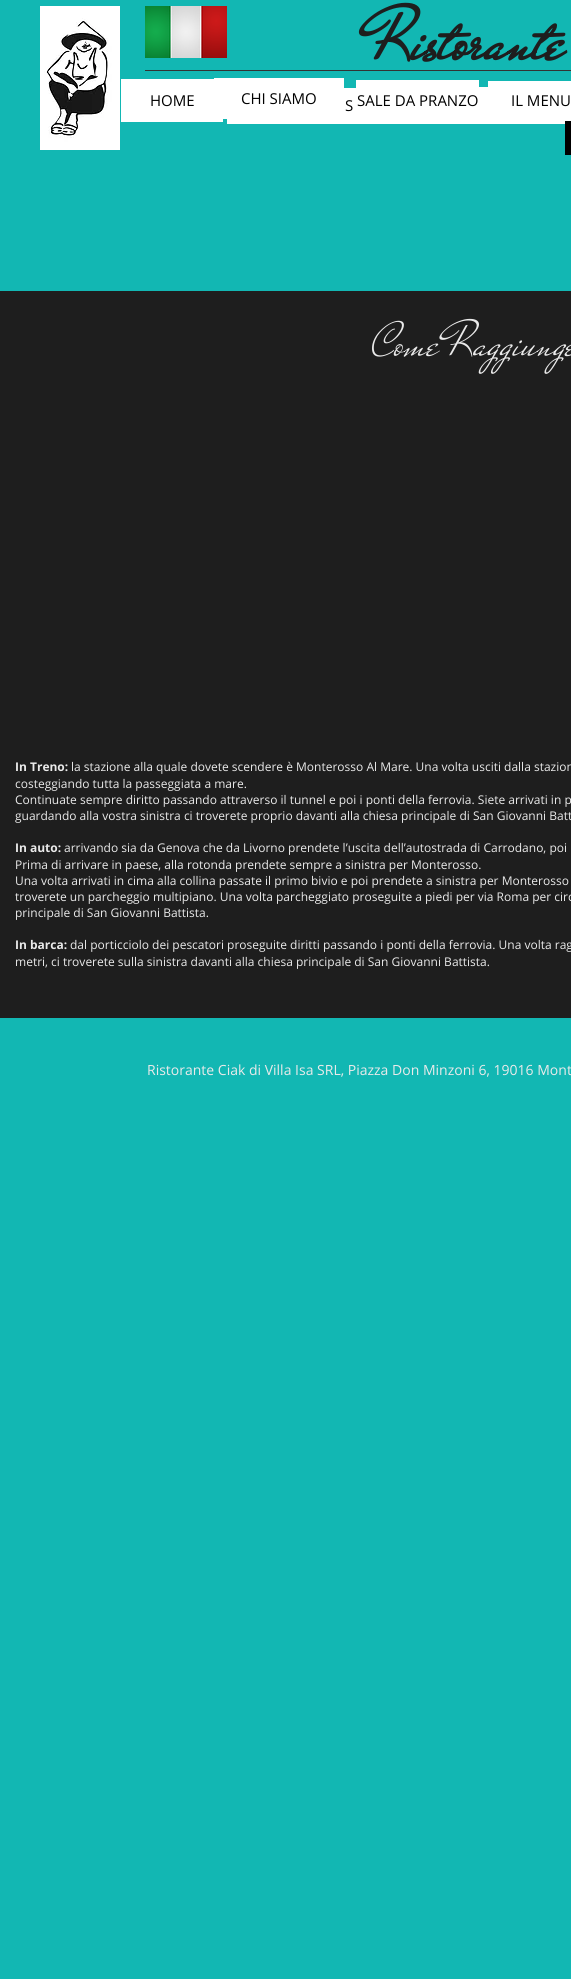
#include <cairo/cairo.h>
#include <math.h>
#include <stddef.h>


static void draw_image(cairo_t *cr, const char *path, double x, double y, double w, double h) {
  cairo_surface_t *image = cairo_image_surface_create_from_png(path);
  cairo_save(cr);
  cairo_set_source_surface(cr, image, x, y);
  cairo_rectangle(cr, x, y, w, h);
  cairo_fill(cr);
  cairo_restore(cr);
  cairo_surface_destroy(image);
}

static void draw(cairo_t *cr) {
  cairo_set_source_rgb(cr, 18 / 255.0, 183 / 255.0, 179 / 255.0);
  cairo_paint(cr);
  draw_image(cr, "images/1.png", 40, 6, 80, 144);
  draw_image(cr, "images/2.png", 145, 6, 82, 52);
  cairo_set_source_rgb(cr, 51 / 255.0, 51 / 255.0, 51 / 255.0);
  cairo_rectangle(cr, 145, 70, 426, 1);
  cairo_fill(cr);
  cairo_set_source_rgb(cr, 1, 1, 1);
  cairo_rectangle(cr, 332, 88, 143, 36);
  cairo_fill(cr);
  cairo_rectangle(cr, 475, 87, 96, 37);
  cairo_fill(cr);
  cairo_rectangle(cr, 227, 119, 105, 5);
  cairo_fill(cr);
  cairo_rectangle(cr, 121, 79, 102, 43);
  cairo_fill(cr);
  cairo_rectangle(cr, 214, 78, 130, 41);
  cairo_fill(cr);
  cairo_rectangle(cr, 356, 80, 123, 8);
  cairo_fill(cr);
  cairo_rectangle(cr, 488, 81, 83, 6);
  cairo_fill(cr);
  cairo_set_source_rgb(cr, 0, 0, 0);
  cairo_rectangle(cr, 565, 121, 6, 34);
  cairo_fill(cr);
  cairo_set_source_rgb(cr, 30 / 255.0, 30 / 255.0, 30 / 255.0);
  cairo_rectangle(cr, 0, 291, 571, 727);
  cairo_fill(cr);
  cairo_select_font_face(cr, "Mr De Haviland", CAIRO_FONT_SLANT_NORMAL, CAIRO_FONT_WEIGHT_BOLD);
  cairo_set_font_size(cr, 72);
  cairo_move_to(cr, 370, 59);
  cairo_show_text(cr, "Ristorante");
  cairo_select_font_face(cr, "Open Sans", CAIRO_FONT_SLANT_NORMAL, CAIRO_FONT_WEIGHT_NORMAL);
  cairo_set_font_size(cr, 15);
  cairo_set_source_rgb(cr, 0, 0, 0);
  cairo_move_to(cr, 345, 111);
  cairo_show_text(cr, "S");
  cairo_move_to(cr, 150, 106);
  cairo_show_text(cr, "HOME");
  cairo_move_to(cr, 241, 104);
  cairo_show_text(cr, "CHI SIAMO");
  cairo_move_to(cr, 357, 106);
  cairo_show_text(cr, "SALE DA PRANZO");
  cairo_move_to(cr, 511, 106);
  cairo_show_text(cr, "IL MENU");
  cairo_select_font_face(cr, "Mr De Haviland", CAIRO_FONT_SLANT_NORMAL, CAIRO_FONT_WEIGHT_NORMAL);
  cairo_set_font_size(cr, 48);
  cairo_set_source_rgb(cr, 234 / 255.0, 234 / 255.0, 234 / 255.0);
  cairo_move_to(cr, 372, 355);
  cairo_show_text(cr, "Come Raggiunge");
  cairo_select_font_face(cr, "Open Sans", CAIRO_FONT_SLANT_NORMAL, CAIRO_FONT_WEIGHT_BOLD);
  cairo_set_font_size(cr, 12);
  cairo_move_to(cr, 15, 771);
  cairo_show_text(cr, "In Treno:");
  cairo_select_font_face(cr, "Open Sans", CAIRO_FONT_SLANT_NORMAL, CAIRO_FONT_WEIGHT_NORMAL);
  cairo_move_to(cr, 71, 771);
  cairo_show_text(cr, "la stazione alla quale dovete scendere è Monterosso Al Mare. Una volta usciti dalla stazion");
  cairo_move_to(cr, 15, 788);
  cairo_show_text(cr, "costeggiando tutta la passeggiata a mare.");
  cairo_move_to(cr, 15, 804);
  cairo_show_text(cr, "Continuate sempre diritto passando attraverso il tunnel e poi i ponti della ferrovia. Siete arrivati in p");
  cairo_move_to(cr, 15, 820);
  cairo_show_text(cr, "guardando alla vostra sinistra ci troverete proprio davanti alla chiesa principale di San Giovanni Batt");
  cairo_select_font_face(cr, "Open Sans", CAIRO_FONT_SLANT_NORMAL, CAIRO_FONT_WEIGHT_BOLD);
  cairo_move_to(cr, 15, 852);
  cairo_show_text(cr, "In auto:");
  cairo_select_font_face(cr, "Open Sans", CAIRO_FONT_SLANT_NORMAL, CAIRO_FONT_WEIGHT_NORMAL);
  cairo_move_to(cr, 64, 852);
  cairo_show_text(cr, "arrivando sia da Genova che da Livorno prendete l’uscita dell’autostrada di Carrodano, poi");
  cairo_move_to(cr, 15, 869);
  cairo_show_text(cr, "Prima di arrivare in paese, alla rotonda prendete sempre a sinistra per Monterosso.");
  cairo_move_to(cr, 15, 885);
  cairo_show_text(cr, "Una volta arrivati in cima alla collina passate il primo bivio e poi prendete a sinistra per Monterosso");
  cairo_move_to(cr, 15, 901);
  cairo_show_text(cr, "troverete un parcheggio multipiano. Una volta parcheggiato proseguite a piedi per via Roma per circ");
  cairo_move_to(cr, 15, 917);
  cairo_show_text(cr, "principale di San Giovanni Battista.");
  cairo_select_font_face(cr, "Open Sans", CAIRO_FONT_SLANT_NORMAL, CAIRO_FONT_WEIGHT_BOLD);
  cairo_move_to(cr, 15, 949);
  cairo_show_text(cr, "In barca:");
  cairo_select_font_face(cr, "Open Sans", CAIRO_FONT_SLANT_NORMAL, CAIRO_FONT_WEIGHT_NORMAL);
  cairo_move_to(cr, 70, 949);
  cairo_show_text(cr, "dal porticciolo dei pescatori proseguite diritti passando i ponti della ferrovia. Una volta rag");
  cairo_move_to(cr, 15, 966);
  cairo_show_text(cr, "metri, ci troverete sulla sinistra davanti alla chiesa principale di San Giovanni Battista.");
  cairo_set_font_size(cr, 14);
  cairo_move_to(cr, 147, 1075);
  cairo_show_text(cr, "Ristorante Ciak di Villa Isa SRL, Piazza Don Minzoni 6, 19016 Mont");
}

int main(void) {
  cairo_surface_t *surface = cairo_image_surface_create(CAIRO_FORMAT_RGB24, 571, 1979);
  cairo_t *cr = cairo_create(surface);
  cairo_font_options_t *options = cairo_font_options_create();
  cairo_font_options_set_hint_metrics(options, CAIRO_HINT_METRICS_OFF);
  cairo_font_options_set_hint_style(options, CAIRO_HINT_STYLE_NONE);
  cairo_set_font_options(cr, options);
  cairo_set_miter_limit(cr, 4);
  draw(cr);
  cairo_surface_write_to_png(surface, "out.png");
  cairo_font_options_destroy(options);
  cairo_destroy(cr);
  cairo_surface_destroy(surface);
  return 0;
}
